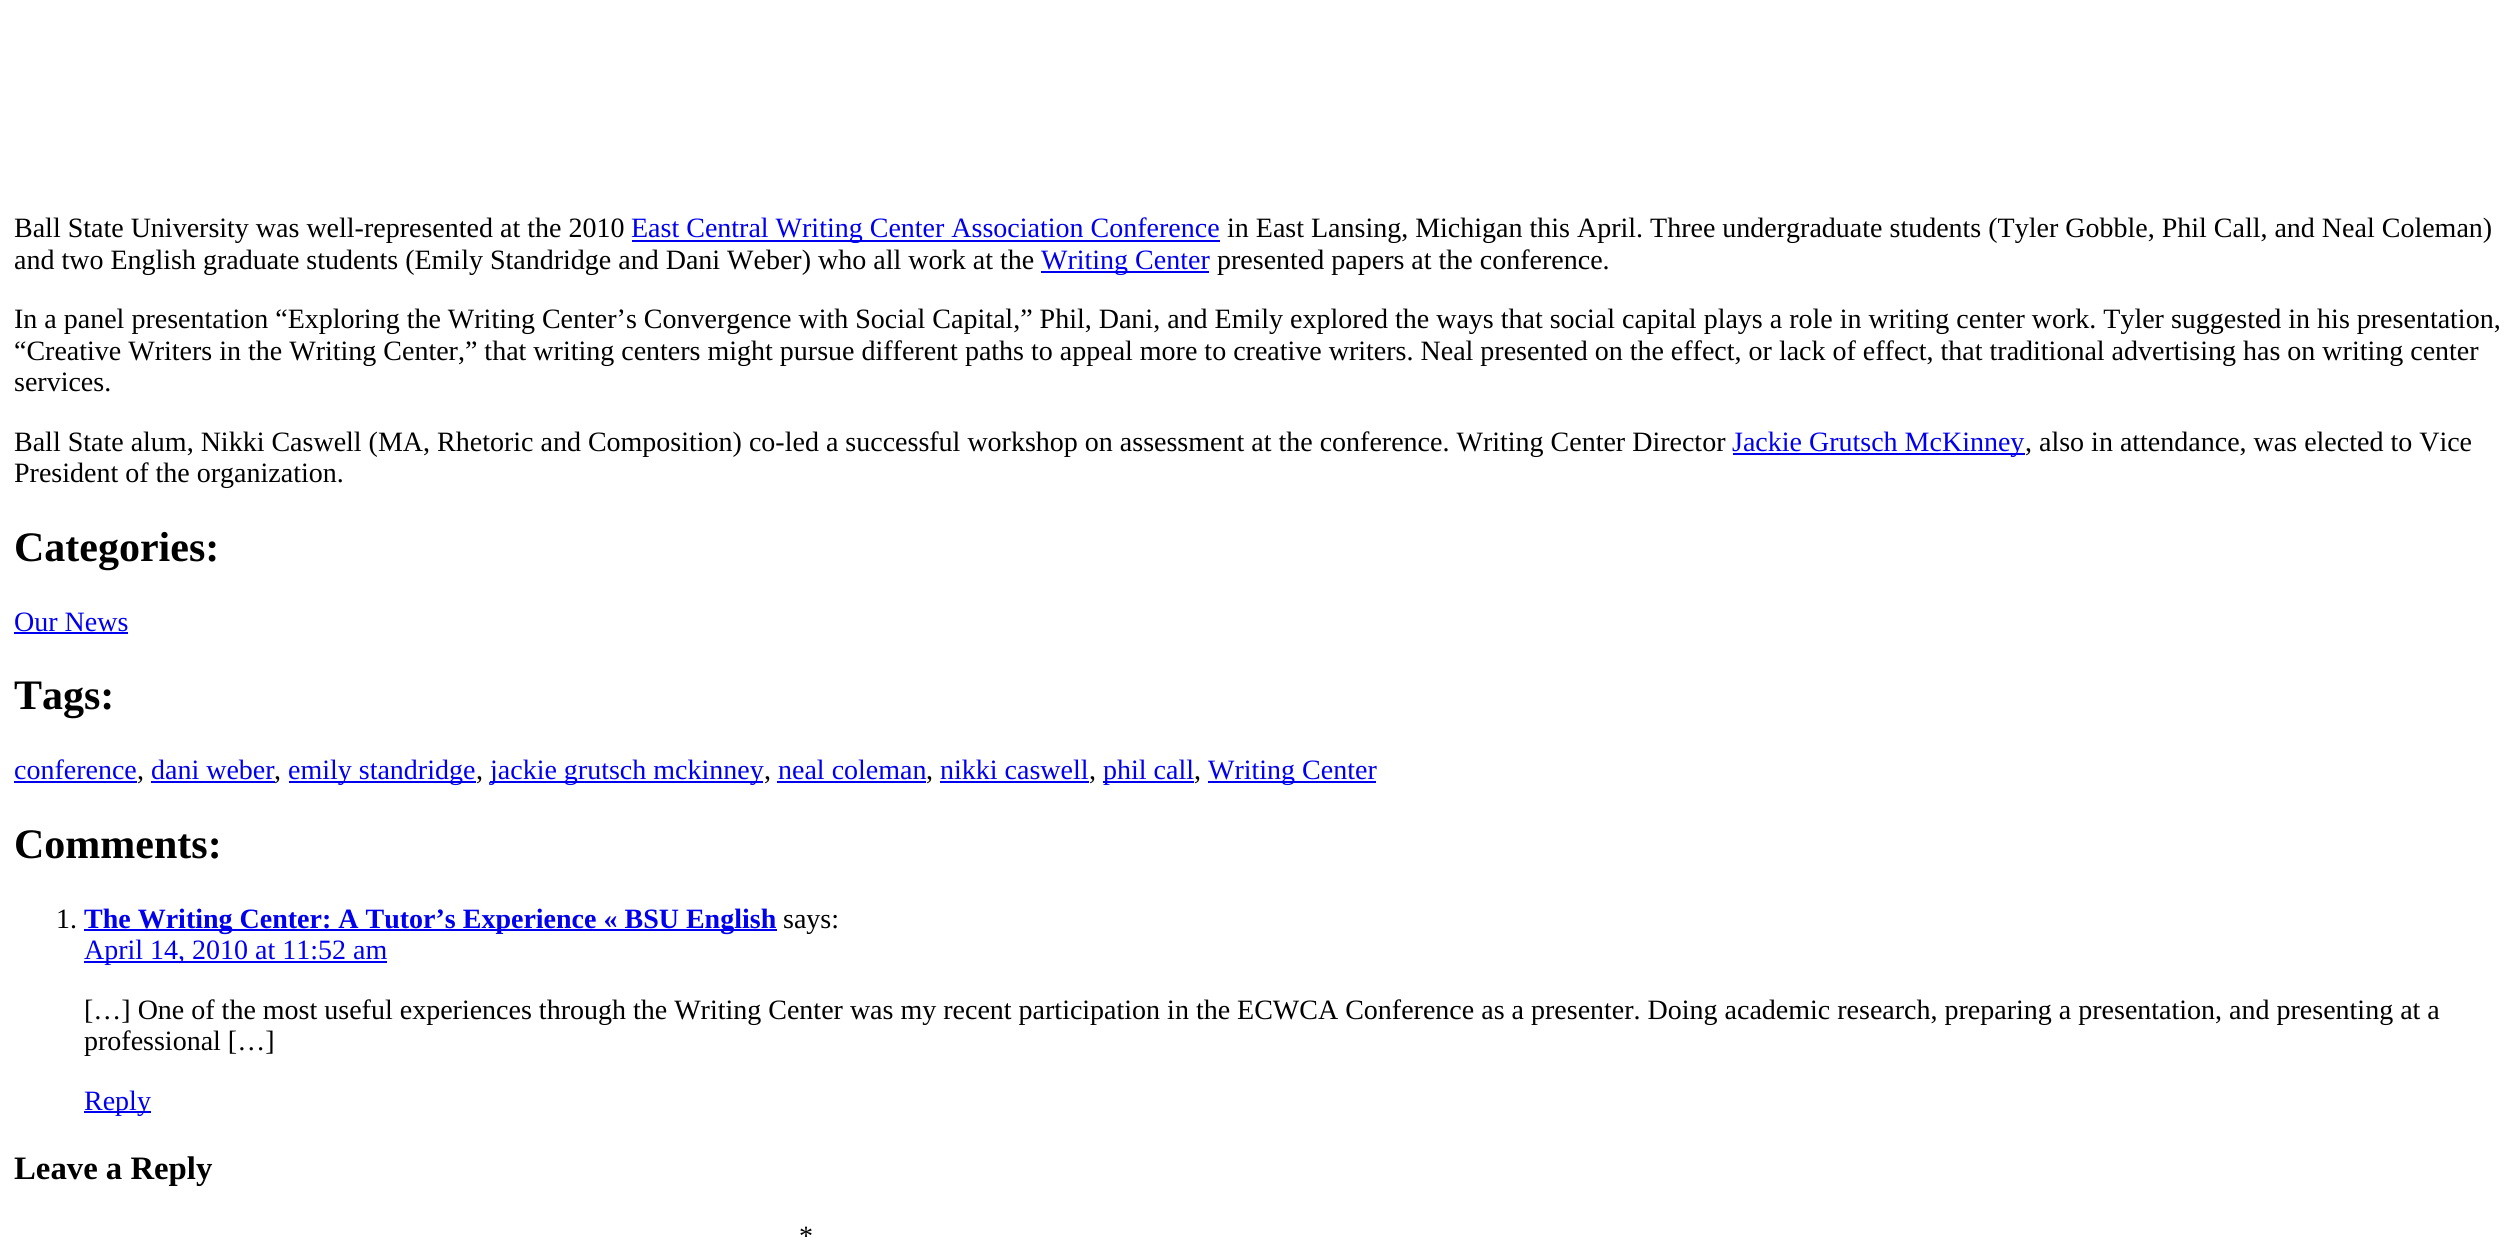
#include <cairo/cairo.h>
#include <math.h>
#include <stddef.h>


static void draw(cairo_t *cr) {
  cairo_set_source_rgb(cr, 1, 1, 1);
  cairo_paint(cr);
  cairo_set_source_rgb(cr, 0, 0, 238 / 255.0);
  cairo_rectangle(cr, 632, 240, 588, 2);
  cairo_fill(cr);
  cairo_rectangle(cr, 1041, 271, 168, 2);
  cairo_fill(cr);
  cairo_rectangle(cr, 1733, 453, 292, 2);
  cairo_fill(cr);
  cairo_rectangle(cr, 14, 632, 114, 2);
  cairo_fill(cr);
  cairo_rectangle(cr, 14, 781, 123, 2);
  cairo_fill(cr);
  cairo_rectangle(cr, 151, 781, 124, 2);
  cairo_fill(cr);
  cairo_rectangle(cr, 289, 781, 187, 2);
  cairo_fill(cr);
  cairo_rectangle(cr, 490, 781, 273, 2);
  cairo_fill(cr);
  cairo_rectangle(cr, 777, 781, 149, 2);
  cairo_fill(cr);
  cairo_rectangle(cr, 940, 781, 149, 2);
  cairo_fill(cr);
  cairo_rectangle(cr, 1103, 781, 91, 2);
  cairo_fill(cr);
  cairo_rectangle(cr, 1208, 781, 168, 2);
  cairo_fill(cr);
  cairo_rectangle(cr, 84, 929, 693, 2);
  cairo_fill(cr);
  cairo_rectangle(cr, 84, 961, 303, 2);
  cairo_fill(cr);
  cairo_rectangle(cr, 84, 1111, 67, 2);
  cairo_fill(cr);
  cairo_select_font_face(cr, "Liberation Serif", CAIRO_FONT_SLANT_NORMAL, CAIRO_FONT_WEIGHT_NORMAL);
  cairo_set_font_size(cr, 28);
  cairo_set_source_rgb(cr, 0, 0, 0);
  cairo_move_to(cr, 14, 237);
  cairo_show_text(cr, "Ball State University was well-represented at the 2010");
  cairo_set_source_rgb(cr, 0, 0, 238 / 255.0);
  cairo_move_to(cr, 631, 237);
  cairo_show_text(cr, "East Central Writing Center Association Conference");
  cairo_set_source_rgb(cr, 0, 0, 0);
  cairo_move_to(cr, 1227, 237);
  cairo_show_text(cr, "in East Lansing, Michigan this April. Three undergraduate students (Tyler Gobble, Phil Call, and Neal Coleman)");
  cairo_move_to(cr, 14, 269);
  cairo_show_text(cr, "and two English graduate students (Emily Standridge and Dani Weber) who all work at the");
  cairo_set_source_rgb(cr, 0, 0, 238 / 255.0);
  cairo_move_to(cr, 1041, 269);
  cairo_show_text(cr, "Writing Center");
  cairo_set_source_rgb(cr, 0, 0, 0);
  cairo_move_to(cr, 1217, 269);
  cairo_show_text(cr, "presented papers at the conference.");
  cairo_move_to(cr, 14, 328);
  cairo_show_text(cr, "In a panel presentation “Exploring the Writing Center’s Convergence with Social Capital,” Phil, Dani, and Emily explored the ways that social capital plays a role in writing center work. Tyler suggested in his presentation,");
  cairo_move_to(cr, 14, 360);
  cairo_show_text(cr, "“Creative Writers in the Writing Center,” that writing centers might pursue different paths to appeal more to creative writers. Neal presented on the effect, or lack of effect, that traditional advertising has on writing center");
  cairo_move_to(cr, 14, 391);
  cairo_show_text(cr, "services.");
  cairo_move_to(cr, 14, 451);
  cairo_show_text(cr, "Ball State alum, Nikki Caswell (MA, Rhetoric and Composition) co-led a successful workshop on assessment at the conference. Writing Center Director");
  cairo_set_source_rgb(cr, 0, 0, 238 / 255.0);
  cairo_move_to(cr, 1732, 451);
  cairo_show_text(cr, "Jackie Grutsch McKinney");
  cairo_set_source_rgb(cr, 0, 0, 0);
  cairo_move_to(cr, 2025, 451);
  cairo_show_text(cr, ", also in attendance, was elected to Vice");
  cairo_move_to(cr, 14, 482);
  cairo_show_text(cr, "President of the organization.");
  cairo_select_font_face(cr, "Liberation Serif", CAIRO_FONT_SLANT_NORMAL, CAIRO_FONT_WEIGHT_BOLD);
  cairo_set_font_size(cr, 42);
  cairo_move_to(cr, 14, 561);
  cairo_show_text(cr, "Categories:");
  cairo_select_font_face(cr, "Liberation Serif", CAIRO_FONT_SLANT_NORMAL, CAIRO_FONT_WEIGHT_NORMAL);
  cairo_set_font_size(cr, 28);
  cairo_set_source_rgb(cr, 0, 0, 238 / 255.0);
  cairo_move_to(cr, 14, 631);
  cairo_show_text(cr, "Our News");
  cairo_select_font_face(cr, "Liberation Serif", CAIRO_FONT_SLANT_NORMAL, CAIRO_FONT_WEIGHT_BOLD);
  cairo_set_font_size(cr, 42);
  cairo_set_source_rgb(cr, 0, 0, 0);
  cairo_move_to(cr, 14, 709);
  cairo_show_text(cr, "Tags:");
  cairo_select_font_face(cr, "Liberation Serif", CAIRO_FONT_SLANT_NORMAL, CAIRO_FONT_WEIGHT_NORMAL);
  cairo_set_font_size(cr, 28);
  cairo_set_source_rgb(cr, 0, 0, 238 / 255.0);
  cairo_move_to(cr, 14, 779);
  cairo_show_text(cr, "conference");
  cairo_set_source_rgb(cr, 0, 0, 0);
  cairo_move_to(cr, 137, 779);
  cairo_show_text(cr, ",");
  cairo_set_source_rgb(cr, 0, 0, 238 / 255.0);
  cairo_move_to(cr, 151, 779);
  cairo_show_text(cr, "dani weber");
  cairo_set_source_rgb(cr, 0, 0, 0);
  cairo_move_to(cr, 274, 779);
  cairo_show_text(cr, ",");
  cairo_set_source_rgb(cr, 0, 0, 238 / 255.0);
  cairo_move_to(cr, 288, 779);
  cairo_show_text(cr, "emily standridge");
  cairo_set_source_rgb(cr, 0, 0, 0);
  cairo_move_to(cr, 476, 779);
  cairo_show_text(cr, ",");
  cairo_set_source_rgb(cr, 0, 0, 238 / 255.0);
  cairo_move_to(cr, 490, 779);
  cairo_show_text(cr, "jackie grutsch mckinney");
  cairo_set_source_rgb(cr, 0, 0, 0);
  cairo_move_to(cr, 764, 779);
  cairo_show_text(cr, ",");
  cairo_set_source_rgb(cr, 0, 0, 238 / 255.0);
  cairo_move_to(cr, 778, 779);
  cairo_show_text(cr, "neal coleman");
  cairo_set_source_rgb(cr, 0, 0, 0);
  cairo_move_to(cr, 926, 779);
  cairo_show_text(cr, ",");
  cairo_set_source_rgb(cr, 0, 0, 238 / 255.0);
  cairo_move_to(cr, 940, 779);
  cairo_show_text(cr, "nikki caswell");
  cairo_set_source_rgb(cr, 0, 0, 0);
  cairo_move_to(cr, 1089, 779);
  cairo_show_text(cr, ",");
  cairo_set_source_rgb(cr, 0, 0, 238 / 255.0);
  cairo_move_to(cr, 1103, 779);
  cairo_show_text(cr, "phil call");
  cairo_set_source_rgb(cr, 0, 0, 0);
  cairo_move_to(cr, 1194, 779);
  cairo_show_text(cr, ",");
  cairo_set_source_rgb(cr, 0, 0, 238 / 255.0);
  cairo_move_to(cr, 1208, 779);
  cairo_show_text(cr, "Writing Center");
  cairo_select_font_face(cr, "Liberation Serif", CAIRO_FONT_SLANT_NORMAL, CAIRO_FONT_WEIGHT_BOLD);
  cairo_set_font_size(cr, 42);
  cairo_set_source_rgb(cr, 0, 0, 0);
  cairo_move_to(cr, 14, 858);
  cairo_show_text(cr, "Comments:");
  cairo_select_font_face(cr, "Liberation Serif", CAIRO_FONT_SLANT_NORMAL, CAIRO_FONT_WEIGHT_NORMAL);
  cairo_set_font_size(cr, 28);
  cairo_move_to(cr, 56, 928);
  cairo_show_text(cr, "1.");
  cairo_select_font_face(cr, "Liberation Serif", CAIRO_FONT_SLANT_NORMAL, CAIRO_FONT_WEIGHT_BOLD);
  cairo_set_source_rgb(cr, 0, 0, 238 / 255.0);
  cairo_move_to(cr, 84, 928);
  cairo_show_text(cr, "The Writing Center: A Tutor’s Experience « BSU English");
  cairo_select_font_face(cr, "Liberation Serif", CAIRO_FONT_SLANT_NORMAL, CAIRO_FONT_WEIGHT_NORMAL);
  cairo_set_source_rgb(cr, 0, 0, 0);
  cairo_move_to(cr, 783, 928);
  cairo_show_text(cr, "says:");
  cairo_set_source_rgb(cr, 0, 0, 238 / 255.0);
  cairo_move_to(cr, 84, 959);
  cairo_show_text(cr, "April 14, 2010 at 11:52 am");
  cairo_set_source_rgb(cr, 0, 0, 0);
  cairo_move_to(cr, 84, 1019);
  cairo_show_text(cr, "[…] One of the most useful experiences through the Writing Center was my recent participation in the ECWCA Conference as a presenter. Doing academic research, preparing a presentation, and presenting at a");
  cairo_move_to(cr, 84, 1050);
  cairo_show_text(cr, "professional […]");
  cairo_set_source_rgb(cr, 0, 0, 238 / 255.0);
  cairo_move_to(cr, 84, 1110);
  cairo_show_text(cr, "Reply");
  cairo_select_font_face(cr, "Liberation Serif", CAIRO_FONT_SLANT_NORMAL, CAIRO_FONT_WEIGHT_BOLD);
  cairo_set_font_size(cr, 32.75);
  cairo_set_source_rgb(cr, 0, 0, 0);
  cairo_move_to(cr, 14, 1179);
  cairo_show_text(cr, "Leave a Reply");
  cairo_select_font_face(cr, "Liberation Serif", CAIRO_FONT_SLANT_NORMAL, CAIRO_FONT_WEIGHT_NORMAL);
  cairo_set_font_size(cr, 28);
  cairo_move_to(cr, 799, 1245);
  cairo_show_text(cr, "*");
}

int main(void) {
  cairo_surface_t *surface = cairo_image_surface_create(CAIRO_FORMAT_RGB24, 2517, 1238);
  cairo_t *cr = cairo_create(surface);
  cairo_font_options_t *options = cairo_font_options_create();
  cairo_font_options_set_hint_metrics(options, CAIRO_HINT_METRICS_OFF);
  cairo_font_options_set_hint_style(options, CAIRO_HINT_STYLE_NONE);
  cairo_set_font_options(cr, options);
  cairo_set_miter_limit(cr, 4);
  draw(cr);
  cairo_surface_write_to_png(surface, "out.png");
  cairo_font_options_destroy(options);
  cairo_destroy(cr);
  cairo_surface_destroy(surface);
  return 0;
}
